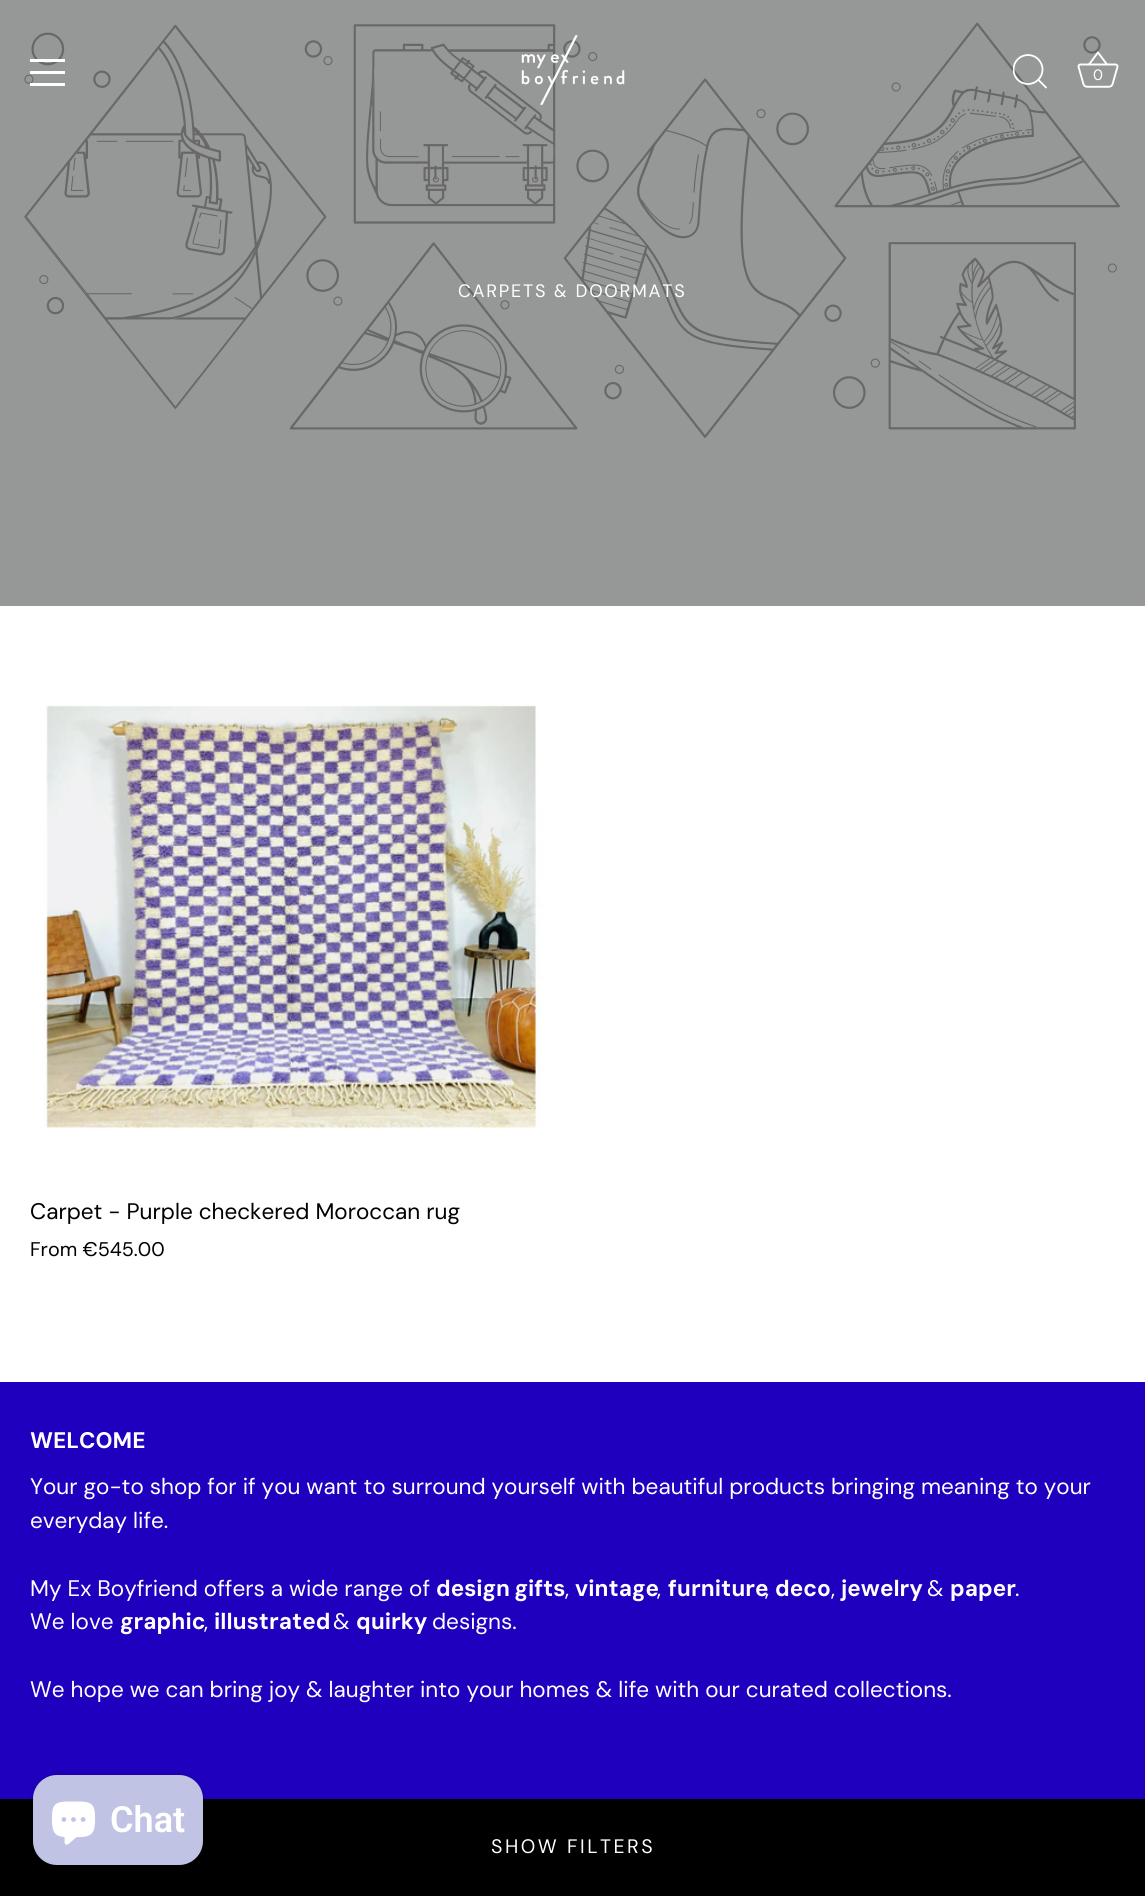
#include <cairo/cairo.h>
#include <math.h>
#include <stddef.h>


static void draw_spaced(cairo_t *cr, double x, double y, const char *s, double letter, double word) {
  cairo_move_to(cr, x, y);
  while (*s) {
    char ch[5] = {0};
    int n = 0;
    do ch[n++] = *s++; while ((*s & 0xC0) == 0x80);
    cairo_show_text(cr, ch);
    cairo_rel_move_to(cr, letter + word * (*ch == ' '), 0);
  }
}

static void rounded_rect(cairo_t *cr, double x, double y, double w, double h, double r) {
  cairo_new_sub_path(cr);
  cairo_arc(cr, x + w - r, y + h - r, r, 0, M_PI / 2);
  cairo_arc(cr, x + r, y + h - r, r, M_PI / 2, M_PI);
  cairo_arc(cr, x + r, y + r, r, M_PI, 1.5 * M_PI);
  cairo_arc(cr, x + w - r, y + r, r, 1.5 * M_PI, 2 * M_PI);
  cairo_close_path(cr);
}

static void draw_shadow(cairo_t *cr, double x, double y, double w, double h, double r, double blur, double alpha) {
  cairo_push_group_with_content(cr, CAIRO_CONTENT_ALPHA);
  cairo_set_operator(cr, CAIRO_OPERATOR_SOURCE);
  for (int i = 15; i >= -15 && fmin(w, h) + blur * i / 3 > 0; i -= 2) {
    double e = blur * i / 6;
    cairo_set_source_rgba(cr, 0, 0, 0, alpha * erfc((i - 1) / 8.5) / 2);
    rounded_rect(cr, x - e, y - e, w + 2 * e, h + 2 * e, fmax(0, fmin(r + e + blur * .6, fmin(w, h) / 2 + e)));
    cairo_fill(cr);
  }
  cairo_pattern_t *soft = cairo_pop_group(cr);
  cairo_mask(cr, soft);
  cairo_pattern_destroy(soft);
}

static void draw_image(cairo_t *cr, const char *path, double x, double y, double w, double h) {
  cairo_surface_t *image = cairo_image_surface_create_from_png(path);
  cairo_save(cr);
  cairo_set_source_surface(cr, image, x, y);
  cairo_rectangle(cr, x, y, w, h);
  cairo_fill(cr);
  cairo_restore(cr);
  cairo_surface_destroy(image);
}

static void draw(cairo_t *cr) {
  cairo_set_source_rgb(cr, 1, 1, 1);
  cairo_paint(cr);
  cairo_set_source_rgb(cr, 150 / 255.0, 151 / 255.0, 151 / 255.0);
  cairo_rectangle(cr, 0, 0, 1145, 606);
  cairo_fill(cr);
  draw_image(cr, "images/3.png", 24, 22, 1096, 416);
  cairo_set_source_rgb(cr, 1, 1, 1);
  cairo_rectangle(cr, 30, 59, 35, 3);
  cairo_fill(cr);
  cairo_rectangle(cr, 30, 71, 35, 3);
  cairo_fill(cr);
  cairo_rectangle(cr, 30, 83, 35, 3);
  cairo_fill(cr);
  draw_image(cr, "images/1.png", 521, 35, 104, 71);
  cairo_save(cr);
  cairo_rectangle(cr, 1013, 54, 36, 36);
  cairo_clip(cr);
  cairo_arc(cr, 1028, 69.5, 14.5, 0, 2 * M_PI);
  cairo_set_line_width(cr, 1.8);
  cairo_stroke(cr);
  cairo_restore(cr);
  cairo_new_path(cr);
  cairo_move_to(cr, 1046, 87.5);
  cairo_line_to(cr, 1038.5, 80);
  cairo_set_line_width(cr, 1.8);
  cairo_set_line_cap(cr, CAIRO_LINE_CAP_ROUND);
  cairo_set_line_join(cr, CAIRO_LINE_JOIN_ROUND);
  cairo_stroke(cr);
  draw_image(cr, "images/2.png", 1077, 51, 42, 37);
  draw_image(cr, "images/4.png", 44, 705, 499, 424);
  cairo_set_source_rgb(cr, 0, 0, 0);
  cairo_rectangle(cr, 0, 1799, 1145, 97);
  cairo_fill(cr);
  cairo_set_source_rgb(cr, 31 / 255.0, 0, 190 / 255.0);
  cairo_rectangle(cr, 0, 1382, 1145, 417);
  cairo_fill(cr);
  cairo_set_source_rgb(cr, 0, 0, 0);
  draw_shadow(cr, 33, 1775, 170, 90, 24, 4, 0.15);
  cairo_set_source_rgb(cr, 192 / 255.0, 195 / 255.0, 228 / 255.0);
  rounded_rect(cr, 33, 1775, 170, 90, 24);
  cairo_fill(cr);
  draw_image(cr, "images/5.png", 51, 1801, 45, 44);
  cairo_select_font_face(cr, "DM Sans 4", CAIRO_FONT_SLANT_NORMAL, CAIRO_FONT_WEIGHT_NORMAL);
  cairo_set_font_size(cr, 15);
  cairo_set_source_rgb(cr, 1, 1, 1);
  cairo_move_to(cr, 1093, 80);
  cairo_show_text(cr, "0");
  cairo_select_font_face(cr, "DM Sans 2", CAIRO_FONT_SLANT_NORMAL, CAIRO_FONT_WEIGHT_NORMAL);
  cairo_set_font_size(cr, 18);
  draw_spaced(cr, 458, 297, "CARPETS & DOORMATS", 1.75, 0);
  cairo_select_font_face(cr, "DM Sans", CAIRO_FONT_SLANT_NORMAL, CAIRO_FONT_WEIGHT_NORMAL);
  cairo_set_font_size(cr, 22.5);
  cairo_set_source_rgb(cr, 0, 0, 0);
  cairo_move_to(cr, 30, 1219);
  cairo_show_text(cr, "Carpet - Purple checkered Moroccan rug");
  cairo_select_font_face(cr, "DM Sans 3", CAIRO_FONT_SLANT_NORMAL, CAIRO_FONT_WEIGHT_NORMAL);
  cairo_set_font_size(cr, 19.75);
  cairo_move_to(cr, 30, 1256);
  cairo_show_text(cr, "From €545.00");
  cairo_select_font_face(cr, "DM Sans 2", CAIRO_FONT_SLANT_NORMAL, CAIRO_FONT_WEIGHT_NORMAL);
  cairo_set_font_size(cr, 19.5);
  cairo_set_source_rgb(cr, 1, 1, 1);
  draw_spaced(cr, 491, 1853, "SHOW FILTERS", 2.5, 0);
  cairo_select_font_face(cr, "DM Sans", CAIRO_FONT_SLANT_NORMAL, CAIRO_FONT_WEIGHT_BOLD);
  cairo_set_font_size(cr, 22.5);
  cairo_move_to(cr, 30, 1448);
  cairo_show_text(cr, "WELCOME");
  cairo_select_font_face(cr, "DM Sans", CAIRO_FONT_SLANT_NORMAL, CAIRO_FONT_WEIGHT_NORMAL);
  cairo_move_to(cr, 30, 1494);
  cairo_show_text(cr, "Your go-to shop for if you want to surround yourself with beautiful products bringing meaning to your");
  cairo_move_to(cr, 30, 1528);
  cairo_show_text(cr, "everyday life.");
  cairo_move_to(cr, 30, 1596);
  cairo_show_text(cr, "My Ex Boyfriend offers a wide range of");
  cairo_select_font_face(cr, "DM Sans", CAIRO_FONT_SLANT_NORMAL, CAIRO_FONT_WEIGHT_BOLD);
  draw_spaced(cr, 436, 1596, "design gifts", 0, -1);
  cairo_select_font_face(cr, "DM Sans", CAIRO_FONT_SLANT_NORMAL, CAIRO_FONT_WEIGHT_NORMAL);
  cairo_move_to(cr, 565, 1596);
  cairo_show_text(cr, ",");
  cairo_select_font_face(cr, "DM Sans", CAIRO_FONT_SLANT_NORMAL, CAIRO_FONT_WEIGHT_BOLD);
  cairo_move_to(cr, 575, 1596);
  cairo_show_text(cr, "vintage");
  cairo_select_font_face(cr, "DM Sans", CAIRO_FONT_SLANT_NORMAL, CAIRO_FONT_WEIGHT_NORMAL);
  cairo_move_to(cr, 657, 1596);
  cairo_show_text(cr, ",");
  cairo_select_font_face(cr, "DM Sans", CAIRO_FONT_SLANT_NORMAL, CAIRO_FONT_WEIGHT_BOLD);
  cairo_move_to(cr, 668, 1596);
  cairo_show_text(cr, "furniture");
  cairo_move_to(cr, 775, 1596);
  cairo_show_text(cr, "deco");
  cairo_move_to(cr, 841, 1596);
  cairo_show_text(cr, "jewelry");
  cairo_select_font_face(cr, "DM Sans", CAIRO_FONT_SLANT_NORMAL, CAIRO_FONT_WEIGHT_NORMAL);
  cairo_move_to(cr, 927, 1596);
  cairo_show_text(cr, "&");
  cairo_select_font_face(cr, "DM Sans", CAIRO_FONT_SLANT_NORMAL, CAIRO_FONT_WEIGHT_BOLD);
  cairo_move_to(cr, 950, 1596);
  cairo_show_text(cr, "paper");
  cairo_select_font_face(cr, "DM Sans", CAIRO_FONT_SLANT_NORMAL, CAIRO_FONT_WEIGHT_NORMAL);
  cairo_move_to(cr, 765, 1596);
  cairo_show_text(cr, ",");
  cairo_move_to(cr, 831, 1596);
  cairo_show_text(cr, ",");
  cairo_move_to(cr, 1015, 1596);
  cairo_show_text(cr, ".");
  cairo_move_to(cr, 30, 1629);
  cairo_show_text(cr, "We love");
  cairo_select_font_face(cr, "DM Sans", CAIRO_FONT_SLANT_NORMAL, CAIRO_FONT_WEIGHT_BOLD);
  cairo_move_to(cr, 120, 1629);
  cairo_show_text(cr, "graphic");
  cairo_select_font_face(cr, "DM Sans", CAIRO_FONT_SLANT_NORMAL, CAIRO_FONT_WEIGHT_NORMAL);
  cairo_move_to(cr, 204, 1629);
  cairo_show_text(cr, ",");
  cairo_select_font_face(cr, "DM Sans", CAIRO_FONT_SLANT_NORMAL, CAIRO_FONT_WEIGHT_BOLD);
  cairo_move_to(cr, 214, 1629);
  cairo_show_text(cr, "illustrated");
  cairo_select_font_face(cr, "DM Sans", CAIRO_FONT_SLANT_NORMAL, CAIRO_FONT_WEIGHT_NORMAL);
  cairo_move_to(cr, 333, 1629);
  cairo_show_text(cr, "&");
  cairo_select_font_face(cr, "DM Sans", CAIRO_FONT_SLANT_NORMAL, CAIRO_FONT_WEIGHT_BOLD);
  cairo_move_to(cr, 356, 1629);
  cairo_show_text(cr, "quirky");
  cairo_select_font_face(cr, "DM Sans", CAIRO_FONT_SLANT_NORMAL, CAIRO_FONT_WEIGHT_NORMAL);
  cairo_move_to(cr, 432, 1629);
  cairo_show_text(cr, "designs.");
  cairo_move_to(cr, 30, 1697);
  cairo_show_text(cr, "We hope we can bring joy & laughter into your homes & life with our curated collections.");
  cairo_select_font_face(cr, "Roboto SemiBold", CAIRO_FONT_SLANT_NORMAL, CAIRO_FONT_WEIGHT_NORMAL);
  cairo_set_font_size(cr, 36);
  cairo_move_to(cr, 110, 1832);
  cairo_show_text(cr, "Chat");
}

int main(void) {
  cairo_surface_t *surface = cairo_image_surface_create(CAIRO_FORMAT_RGB24, 1145, 1896);
  cairo_t *cr = cairo_create(surface);
  cairo_font_options_t *options = cairo_font_options_create();
  cairo_font_options_set_hint_metrics(options, CAIRO_HINT_METRICS_OFF);
  cairo_font_options_set_hint_style(options, CAIRO_HINT_STYLE_NONE);
  cairo_set_font_options(cr, options);
  cairo_set_miter_limit(cr, 4);
  draw(cr);
  cairo_surface_write_to_png(surface, "out.png");
  cairo_font_options_destroy(options);
  cairo_destroy(cr);
  cairo_surface_destroy(surface);
  return 0;
}
